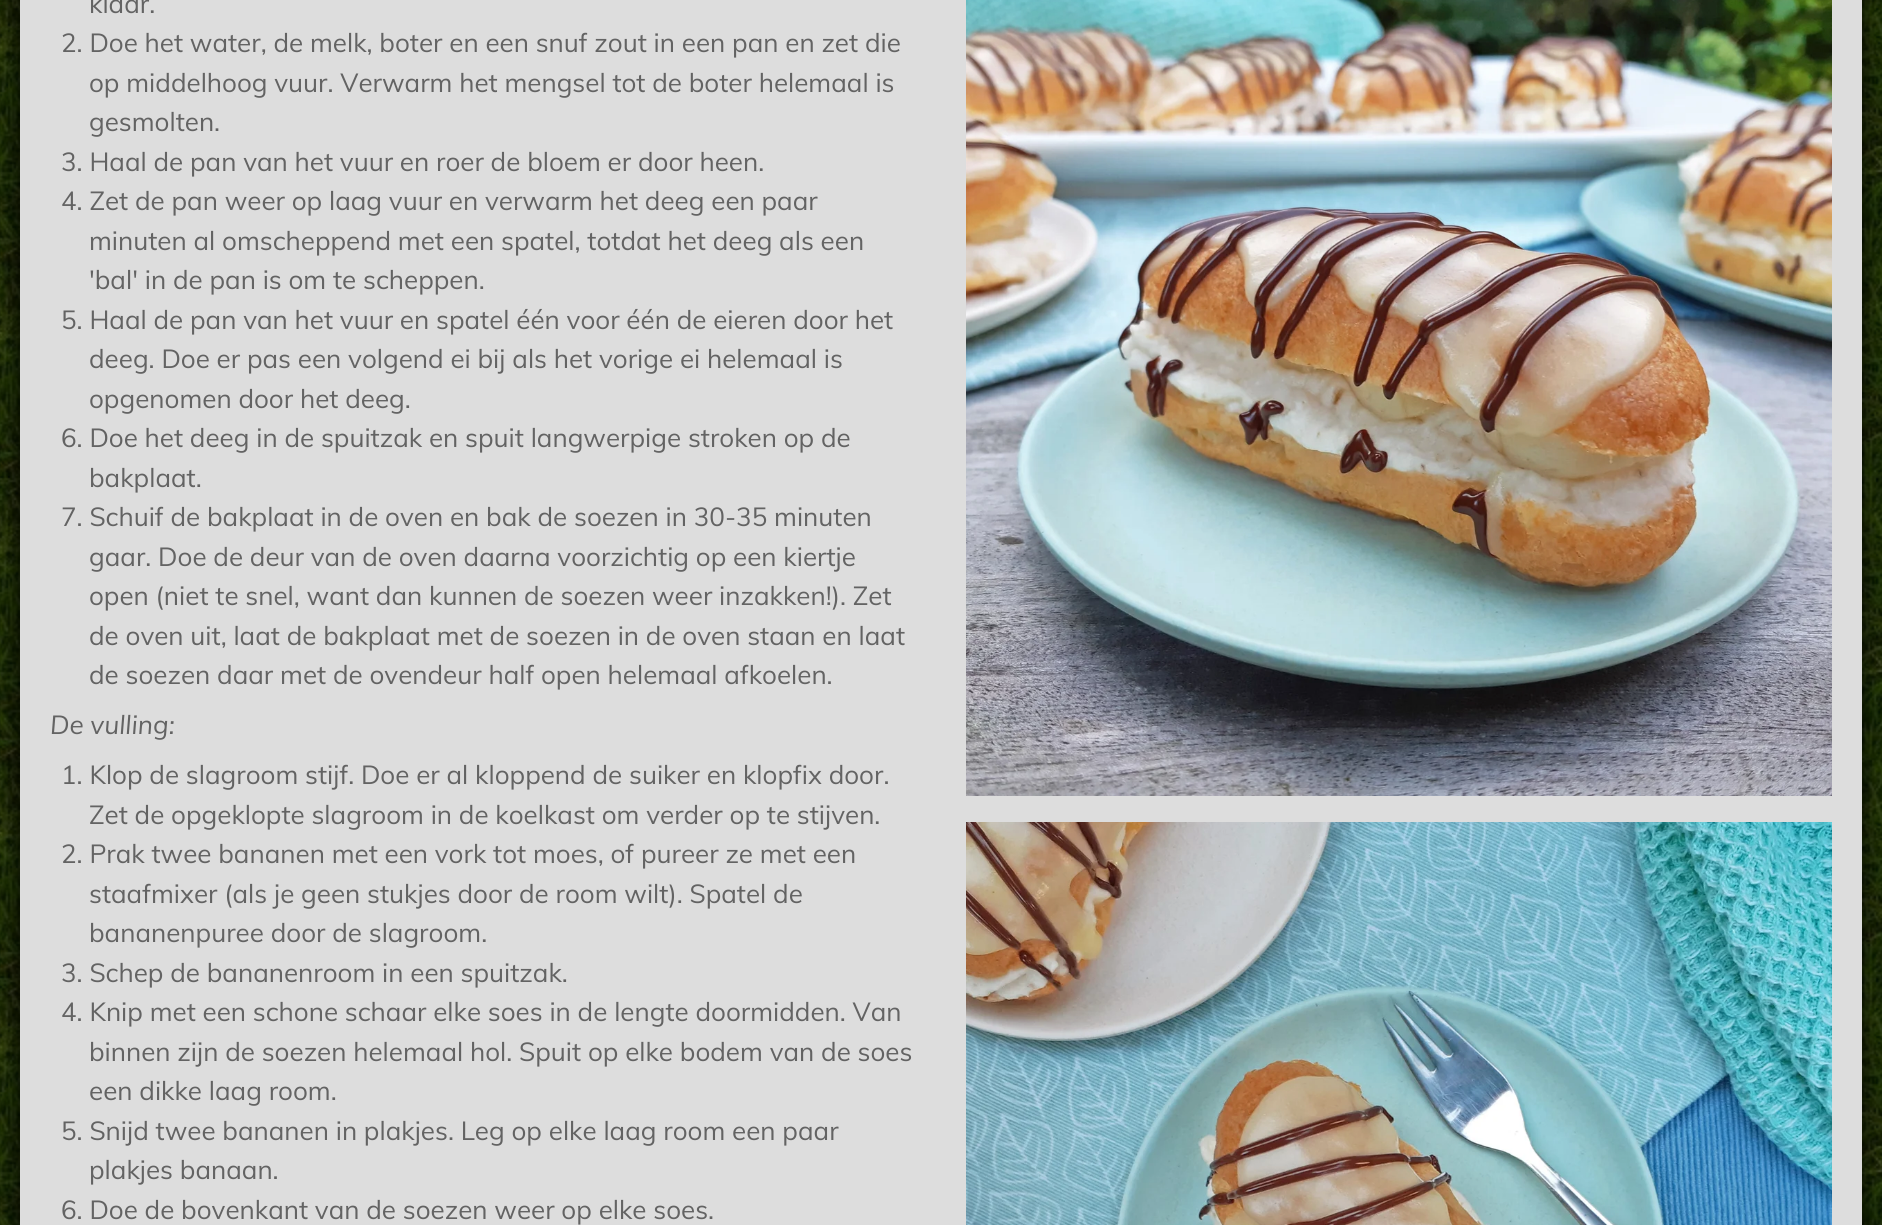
#include <cairo/cairo.h>
#include <math.h>
#include <stddef.h>


static void rounded_rect(cairo_t *cr, double x, double y, double w, double h, double r) {
  cairo_new_sub_path(cr);
  cairo_arc(cr, x + w - r, y + h - r, r, 0, M_PI / 2);
  cairo_arc(cr, x + r, y + h - r, r, M_PI / 2, M_PI);
  cairo_arc(cr, x + r, y + r, r, M_PI, 1.5 * M_PI);
  cairo_arc(cr, x + w - r, y + r, r, 1.5 * M_PI, 2 * M_PI);
  cairo_close_path(cr);
}

static void draw_shadow(cairo_t *cr, double x, double y, double w, double h, double r, double blur, double alpha) {
  cairo_push_group_with_content(cr, CAIRO_CONTENT_ALPHA);
  cairo_set_operator(cr, CAIRO_OPERATOR_SOURCE);
  for (int i = 15; i >= -15 && fmin(w, h) + blur * i / 3 > 0; i -= 2) {
    double e = blur * i / 6;
    cairo_set_source_rgba(cr, 0, 0, 0, alpha * erfc((i - 1) / 8.5) / 2);
    rounded_rect(cr, x - e, y - e, w + 2 * e, h + 2 * e, fmax(0, fmin(r + e + blur * .6, fmin(w, h) / 2 + e)));
    cairo_fill(cr);
  }
  cairo_pattern_t *soft = cairo_pop_group(cr);
  cairo_mask(cr, soft);
  cairo_pattern_destroy(soft);
}

static void draw_image(cairo_t *cr, const char *path, double x, double y, double w, double h) {
  cairo_surface_t *image = cairo_image_surface_create_from_png(path);
  cairo_save(cr);
  cairo_set_source_surface(cr, image, x, y);
  cairo_rectangle(cr, x, y, w, h);
  cairo_fill(cr);
  cairo_restore(cr);
  cairo_surface_destroy(image);
}

static void draw(cairo_t *cr) {
  cairo_set_source_rgb(cr, 1, 1, 1);
  cairo_paint(cr);
  draw_image(cr, "images/1.png", 0, 0, 1882, 1225);
  cairo_set_source_rgb(cr, 0, 0, 0);
  draw_shadow(cr, 20, -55, 1842, 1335, 10, 15, 1);
  cairo_set_source_rgb(cr, 221 / 255.0, 221 / 255.0, 221 / 255.0);
  cairo_rectangle(cr, 20, 0, 1842, 1225);
  cairo_fill(cr);
  draw_image(cr, "images/2.png", 966, 0, 866, 796);
  draw_image(cr, "images/3.png", 966, 822, 866, 403);
  cairo_select_font_face(cr, "Muli", CAIRO_FONT_SLANT_NORMAL, CAIRO_FONT_WEIGHT_NORMAL);
  cairo_set_font_size(cr, 26);
  cairo_set_source_rgb(cr, 99 / 255.0, 99 / 255.0, 99 / 255.0);
  cairo_move_to(cr, 89, 13);
  cairo_show_text(cr, "klaar.");
  cairo_move_to(cr, 61, 52);
  cairo_show_text(cr, "2. Doe het water, de melk, boter en een snuf zout in een pan en zet die");
  cairo_move_to(cr, 89, 92);
  cairo_show_text(cr, "op middelhoog vuur. Verwarm het mengsel tot de boter helemaal is");
  cairo_move_to(cr, 89, 131);
  cairo_show_text(cr, "gesmolten.");
  cairo_move_to(cr, 61, 171);
  cairo_show_text(cr, "3. Haal de pan van het vuur en roer de bloem er door heen.");
  cairo_move_to(cr, 61, 210);
  cairo_show_text(cr, "4. Zet de pan weer op laag vuur en verwarm het deeg een paar");
  cairo_move_to(cr, 89, 250);
  cairo_show_text(cr, "minuten al omscheppend met een spatel, totdat het deeg als een");
  cairo_move_to(cr, 89, 289);
  cairo_show_text(cr, "'bal' in de pan is om te scheppen.");
  cairo_move_to(cr, 61, 329);
  cairo_show_text(cr, "5. Haal de pan van het vuur en spatel één voor één de eieren door het");
  cairo_move_to(cr, 89, 368);
  cairo_show_text(cr, "deeg. Doe er pas een volgend ei bij als het vorige ei helemaal is");
  cairo_move_to(cr, 89, 408);
  cairo_show_text(cr, "opgenomen door het deeg.");
  cairo_move_to(cr, 61, 447);
  cairo_show_text(cr, "6. Doe het deeg in de spuitzak en spuit langwerpige stroken op de");
  cairo_move_to(cr, 89, 487);
  cairo_show_text(cr, "bakplaat.");
  cairo_move_to(cr, 61, 526);
  cairo_show_text(cr, "7. Schuif de bakplaat in de oven en bak de soezen in 30-35 minuten");
  cairo_move_to(cr, 89, 566);
  cairo_show_text(cr, "gaar. Doe de deur van de oven daarna voorzichtig op een kiertje");
  cairo_move_to(cr, 89, 605);
  cairo_show_text(cr, "open (niet te snel, want dan kunnen de soezen weer inzakken!). Zet");
  cairo_move_to(cr, 89, 645);
  cairo_show_text(cr, "de oven uit, laat de bakplaat met de soezen in de oven staan en laat");
  cairo_move_to(cr, 89, 684);
  cairo_show_text(cr, "de soezen daar met de ovendeur half open helemaal afkoelen.");
  cairo_select_font_face(cr, "Muli", CAIRO_FONT_SLANT_ITALIC, CAIRO_FONT_WEIGHT_NORMAL);
  cairo_move_to(cr, 50, 734);
  cairo_show_text(cr, "De vulling:");
  cairo_select_font_face(cr, "Muli", CAIRO_FONT_SLANT_NORMAL, CAIRO_FONT_WEIGHT_NORMAL);
  cairo_move_to(cr, 61, 784);
  cairo_show_text(cr, "1. Klop de slagroom stijf. Doe er al kloppend de suiker en klopfix door.");
  cairo_move_to(cr, 89, 824);
  cairo_show_text(cr, "Zet de opgeklopte slagroom in de koelkast om verder op te stijven.");
  cairo_move_to(cr, 61, 863);
  cairo_show_text(cr, "2. Prak twee bananen met een vork tot moes, of pureer ze met een");
  cairo_move_to(cr, 89, 903);
  cairo_show_text(cr, "staafmixer (als je geen stukjes door de room wilt). Spatel de");
  cairo_move_to(cr, 89, 942);
  cairo_show_text(cr, "bananenpuree door de slagroom.");
  cairo_move_to(cr, 61, 982);
  cairo_show_text(cr, "3. Schep de bananenroom in een spuitzak.");
  cairo_move_to(cr, 61, 1021);
  cairo_show_text(cr, "4. Knip met een schone schaar elke soes in de lengte doormidden. Van");
  cairo_move_to(cr, 89, 1061);
  cairo_show_text(cr, "binnen zijn de soezen helemaal hol. Spuit op elke bodem van de soes");
  cairo_move_to(cr, 89, 1100);
  cairo_show_text(cr, "een dikke laag room.");
  cairo_move_to(cr, 61, 1140);
  cairo_show_text(cr, "5. Snijd twee bananen in plakjes. Leg op elke laag room een paar");
  cairo_move_to(cr, 89, 1179);
  cairo_show_text(cr, "plakjes banaan.");
  cairo_move_to(cr, 61, 1219);
  cairo_show_text(cr, "6. Doe de bovenkant van de soezen weer op elke soes.");
}

int main(void) {
  cairo_surface_t *surface = cairo_image_surface_create(CAIRO_FORMAT_RGB24, 1882, 1225);
  cairo_t *cr = cairo_create(surface);
  cairo_font_options_t *options = cairo_font_options_create();
  cairo_font_options_set_hint_metrics(options, CAIRO_HINT_METRICS_OFF);
  cairo_font_options_set_hint_style(options, CAIRO_HINT_STYLE_NONE);
  cairo_set_font_options(cr, options);
  cairo_set_miter_limit(cr, 4);
  draw(cr);
  cairo_surface_write_to_png(surface, "out.png");
  cairo_font_options_destroy(options);
  cairo_destroy(cr);
  cairo_surface_destroy(surface);
  return 0;
}
